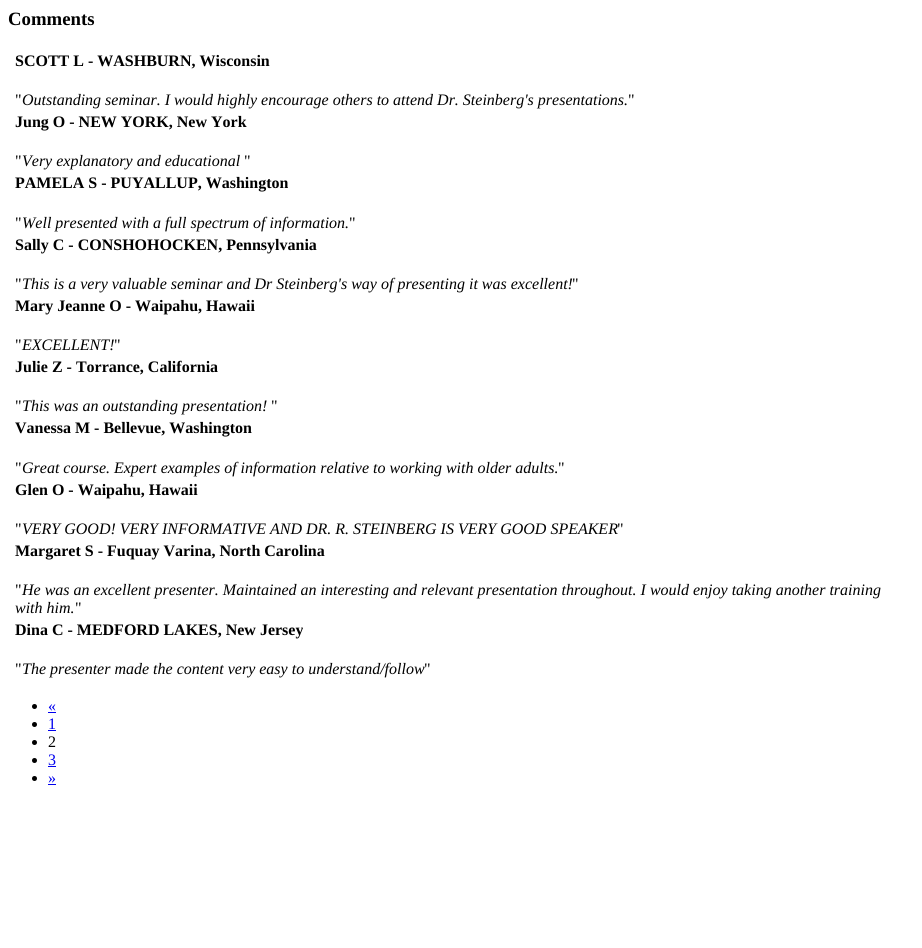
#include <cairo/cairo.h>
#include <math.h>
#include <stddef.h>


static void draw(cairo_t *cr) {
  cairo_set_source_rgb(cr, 1, 1, 1);
  cairo_paint(cr);
  cairo_set_source_rgb(cr, 0, 0, 0);
  cairo_arc(cr, 34.5, 706.5, 2.5, 0, 2 * M_PI);
  cairo_fill(cr);
  cairo_set_source_rgb(cr, 0, 0, 238 / 255.0);
  cairo_rectangle(cr, 48, 712, 8, 1);
  cairo_fill(cr);
  cairo_set_source_rgb(cr, 0, 0, 0);
  cairo_arc(cr, 34.5, 724.5, 2.5, 0, 2 * M_PI);
  cairo_fill(cr);
  cairo_set_source_rgb(cr, 0, 0, 238 / 255.0);
  cairo_rectangle(cr, 48, 730, 8, 1);
  cairo_fill(cr);
  cairo_set_source_rgb(cr, 0, 0, 0);
  cairo_arc(cr, 34.5, 742.5, 2.5, 0, 2 * M_PI);
  cairo_fill(cr);
  cairo_arc(cr, 34.5, 760.5, 2.5, 0, 2 * M_PI);
  cairo_fill(cr);
  cairo_set_source_rgb(cr, 0, 0, 238 / 255.0);
  cairo_rectangle(cr, 48, 766, 8, 1);
  cairo_fill(cr);
  cairo_set_source_rgb(cr, 0, 0, 0);
  cairo_arc(cr, 34.5, 778.5, 2.5, 0, 2 * M_PI);
  cairo_fill(cr);
  cairo_set_source_rgb(cr, 0, 0, 238 / 255.0);
  cairo_rectangle(cr, 48, 784, 8, 1);
  cairo_fill(cr);
  cairo_select_font_face(cr, "Liberation Serif", CAIRO_FONT_SLANT_NORMAL, CAIRO_FONT_WEIGHT_BOLD);
  cairo_set_font_size(cr, 18.75);
  cairo_set_source_rgb(cr, 0, 0, 0);
  cairo_move_to(cr, 8, 25);
  cairo_show_text(cr, "Comments");
  cairo_set_font_size(cr, 16);
  cairo_move_to(cr, 15, 66);
  cairo_show_text(cr, "SCOTT L - WASHBURN, Wisconsin");
  cairo_select_font_face(cr, "Liberation Serif", CAIRO_FONT_SLANT_NORMAL, CAIRO_FONT_WEIGHT_NORMAL);
  cairo_move_to(cr, 15, 105);
  cairo_show_text(cr, "\"");
  cairo_select_font_face(cr, "Liberation Serif", CAIRO_FONT_SLANT_ITALIC, CAIRO_FONT_WEIGHT_NORMAL);
  cairo_move_to(cr, 22, 105);
  cairo_show_text(cr, "Outstanding seminar. I would highly encourage others to attend Dr. Steinberg's presentations.");
  cairo_select_font_face(cr, "Liberation Serif", CAIRO_FONT_SLANT_NORMAL, CAIRO_FONT_WEIGHT_NORMAL);
  cairo_move_to(cr, 628, 105);
  cairo_show_text(cr, "\"");
  cairo_select_font_face(cr, "Liberation Serif", CAIRO_FONT_SLANT_NORMAL, CAIRO_FONT_WEIGHT_BOLD);
  cairo_move_to(cr, 15, 127);
  cairo_show_text(cr, "Jung O - NEW YORK, New York");
  cairo_select_font_face(cr, "Liberation Serif", CAIRO_FONT_SLANT_NORMAL, CAIRO_FONT_WEIGHT_NORMAL);
  cairo_move_to(cr, 15, 166);
  cairo_show_text(cr, "\"");
  cairo_select_font_face(cr, "Liberation Serif", CAIRO_FONT_SLANT_ITALIC, CAIRO_FONT_WEIGHT_NORMAL);
  cairo_move_to(cr, 22, 166);
  cairo_show_text(cr, "Very explanatory and educational");
  cairo_select_font_face(cr, "Liberation Serif", CAIRO_FONT_SLANT_NORMAL, CAIRO_FONT_WEIGHT_NORMAL);
  cairo_move_to(cr, 244, 166);
  cairo_show_text(cr, "\"");
  cairo_select_font_face(cr, "Liberation Serif", CAIRO_FONT_SLANT_NORMAL, CAIRO_FONT_WEIGHT_BOLD);
  cairo_move_to(cr, 15, 188);
  cairo_show_text(cr, "PAMELA S - PUYALLUP, Washington");
  cairo_select_font_face(cr, "Liberation Serif", CAIRO_FONT_SLANT_NORMAL, CAIRO_FONT_WEIGHT_NORMAL);
  cairo_move_to(cr, 15, 228);
  cairo_show_text(cr, "\"");
  cairo_select_font_face(cr, "Liberation Serif", CAIRO_FONT_SLANT_ITALIC, CAIRO_FONT_WEIGHT_NORMAL);
  cairo_move_to(cr, 22, 228);
  cairo_show_text(cr, "Well presented with a full spectrum of information.");
  cairo_select_font_face(cr, "Liberation Serif", CAIRO_FONT_SLANT_NORMAL, CAIRO_FONT_WEIGHT_NORMAL);
  cairo_move_to(cr, 349, 228);
  cairo_show_text(cr, "\"");
  cairo_select_font_face(cr, "Liberation Serif", CAIRO_FONT_SLANT_NORMAL, CAIRO_FONT_WEIGHT_BOLD);
  cairo_move_to(cr, 15, 250);
  cairo_show_text(cr, "Sally C - CONSHOHOCKEN, Pennsylvania");
  cairo_select_font_face(cr, "Liberation Serif", CAIRO_FONT_SLANT_NORMAL, CAIRO_FONT_WEIGHT_NORMAL);
  cairo_move_to(cr, 15, 289);
  cairo_show_text(cr, "\"");
  cairo_select_font_face(cr, "Liberation Serif", CAIRO_FONT_SLANT_ITALIC, CAIRO_FONT_WEIGHT_NORMAL);
  cairo_move_to(cr, 22, 289);
  cairo_show_text(cr, "This is a very valuable seminar and Dr Steinberg's way of presenting it was excellent!");
  cairo_select_font_face(cr, "Liberation Serif", CAIRO_FONT_SLANT_NORMAL, CAIRO_FONT_WEIGHT_NORMAL);
  cairo_move_to(cr, 572, 289);
  cairo_show_text(cr, "\"");
  cairo_select_font_face(cr, "Liberation Serif", CAIRO_FONT_SLANT_NORMAL, CAIRO_FONT_WEIGHT_BOLD);
  cairo_move_to(cr, 15, 311);
  cairo_show_text(cr, "Mary Jeanne O - Waipahu, Hawaii");
  cairo_select_font_face(cr, "Liberation Serif", CAIRO_FONT_SLANT_NORMAL, CAIRO_FONT_WEIGHT_NORMAL);
  cairo_move_to(cr, 15, 350);
  cairo_show_text(cr, "\"");
  cairo_select_font_face(cr, "Liberation Serif", CAIRO_FONT_SLANT_ITALIC, CAIRO_FONT_WEIGHT_NORMAL);
  cairo_move_to(cr, 22, 350);
  cairo_show_text(cr, "EXCELLENT!");
  cairo_select_font_face(cr, "Liberation Serif", CAIRO_FONT_SLANT_NORMAL, CAIRO_FONT_WEIGHT_NORMAL);
  cairo_move_to(cr, 114, 350);
  cairo_show_text(cr, "\"");
  cairo_select_font_face(cr, "Liberation Serif", CAIRO_FONT_SLANT_NORMAL, CAIRO_FONT_WEIGHT_BOLD);
  cairo_move_to(cr, 15, 372);
  cairo_show_text(cr, "Julie Z - Torrance, California");
  cairo_select_font_face(cr, "Liberation Serif", CAIRO_FONT_SLANT_NORMAL, CAIRO_FONT_WEIGHT_NORMAL);
  cairo_move_to(cr, 15, 411);
  cairo_show_text(cr, "\"");
  cairo_select_font_face(cr, "Liberation Serif", CAIRO_FONT_SLANT_ITALIC, CAIRO_FONT_WEIGHT_NORMAL);
  cairo_move_to(cr, 22, 411);
  cairo_show_text(cr, "This was an outstanding presentation!");
  cairo_select_font_face(cr, "Liberation Serif", CAIRO_FONT_SLANT_NORMAL, CAIRO_FONT_WEIGHT_NORMAL);
  cairo_move_to(cr, 271, 411);
  cairo_show_text(cr, "\"");
  cairo_select_font_face(cr, "Liberation Serif", CAIRO_FONT_SLANT_NORMAL, CAIRO_FONT_WEIGHT_BOLD);
  cairo_move_to(cr, 15, 433);
  cairo_show_text(cr, "Vanessa M - Bellevue, Washington");
  cairo_select_font_face(cr, "Liberation Serif", CAIRO_FONT_SLANT_NORMAL, CAIRO_FONT_WEIGHT_NORMAL);
  cairo_move_to(cr, 15, 473);
  cairo_show_text(cr, "\"");
  cairo_select_font_face(cr, "Liberation Serif", CAIRO_FONT_SLANT_ITALIC, CAIRO_FONT_WEIGHT_NORMAL);
  cairo_move_to(cr, 22, 473);
  cairo_show_text(cr, "Great course. Expert examples of information relative to working with older adults.");
  cairo_select_font_face(cr, "Liberation Serif", CAIRO_FONT_SLANT_NORMAL, CAIRO_FONT_WEIGHT_NORMAL);
  cairo_move_to(cr, 558, 473);
  cairo_show_text(cr, "\"");
  cairo_select_font_face(cr, "Liberation Serif", CAIRO_FONT_SLANT_NORMAL, CAIRO_FONT_WEIGHT_BOLD);
  cairo_move_to(cr, 15, 495);
  cairo_show_text(cr, "Glen O - Waipahu, Hawaii");
  cairo_select_font_face(cr, "Liberation Serif", CAIRO_FONT_SLANT_NORMAL, CAIRO_FONT_WEIGHT_NORMAL);
  cairo_move_to(cr, 15, 534);
  cairo_show_text(cr, "\"");
  cairo_select_font_face(cr, "Liberation Serif", CAIRO_FONT_SLANT_ITALIC, CAIRO_FONT_WEIGHT_NORMAL);
  cairo_move_to(cr, 22, 534);
  cairo_show_text(cr, "VERY GOOD! VERY INFORMATIVE AND DR. R. STEINBERG IS VERY GOOD SPEAKER");
  cairo_select_font_face(cr, "Liberation Serif", CAIRO_FONT_SLANT_NORMAL, CAIRO_FONT_WEIGHT_NORMAL);
  cairo_move_to(cr, 617, 534);
  cairo_show_text(cr, "\"");
  cairo_select_font_face(cr, "Liberation Serif", CAIRO_FONT_SLANT_NORMAL, CAIRO_FONT_WEIGHT_BOLD);
  cairo_move_to(cr, 15, 556);
  cairo_show_text(cr, "Margaret S - Fuquay Varina, North Carolina");
  cairo_select_font_face(cr, "Liberation Serif", CAIRO_FONT_SLANT_NORMAL, CAIRO_FONT_WEIGHT_NORMAL);
  cairo_move_to(cr, 15, 595);
  cairo_show_text(cr, "\"");
  cairo_select_font_face(cr, "Liberation Serif", CAIRO_FONT_SLANT_ITALIC, CAIRO_FONT_WEIGHT_NORMAL);
  cairo_move_to(cr, 22, 595);
  cairo_show_text(cr, "He was an excellent presenter. Maintained an interesting and relevant presentation throughout. I would enjoy taking another training");
  cairo_move_to(cr, 15, 613);
  cairo_show_text(cr, "with him.");
  cairo_select_font_face(cr, "Liberation Serif", CAIRO_FONT_SLANT_NORMAL, CAIRO_FONT_WEIGHT_NORMAL);
  cairo_move_to(cr, 75, 613);
  cairo_show_text(cr, "\"");
  cairo_select_font_face(cr, "Liberation Serif", CAIRO_FONT_SLANT_NORMAL, CAIRO_FONT_WEIGHT_BOLD);
  cairo_move_to(cr, 15, 635);
  cairo_show_text(cr, "Dina C - MEDFORD LAKES, New Jersey");
  cairo_select_font_face(cr, "Liberation Serif", CAIRO_FONT_SLANT_NORMAL, CAIRO_FONT_WEIGHT_NORMAL);
  cairo_move_to(cr, 15, 674);
  cairo_show_text(cr, "\"");
  cairo_select_font_face(cr, "Liberation Serif", CAIRO_FONT_SLANT_ITALIC, CAIRO_FONT_WEIGHT_NORMAL);
  cairo_move_to(cr, 22, 674);
  cairo_show_text(cr, "The presenter made the content very easy to understand/follow");
  cairo_select_font_face(cr, "Liberation Serif", CAIRO_FONT_SLANT_NORMAL, CAIRO_FONT_WEIGHT_NORMAL);
  cairo_move_to(cr, 424, 674);
  cairo_show_text(cr, "\"");
  cairo_set_source_rgb(cr, 0, 0, 238 / 255.0);
  cairo_move_to(cr, 48, 711);
  cairo_show_text(cr, "«");
  cairo_move_to(cr, 48, 729);
  cairo_show_text(cr, "1");
  cairo_set_source_rgb(cr, 0, 0, 0);
  cairo_move_to(cr, 48, 747);
  cairo_show_text(cr, "2");
  cairo_set_source_rgb(cr, 0, 0, 238 / 255.0);
  cairo_move_to(cr, 48, 765);
  cairo_show_text(cr, "3");
  cairo_move_to(cr, 48, 783);
  cairo_show_text(cr, "»");
}

int main(void) {
  cairo_surface_t *surface = cairo_image_surface_create(CAIRO_FORMAT_RGB24, 922, 948);
  cairo_t *cr = cairo_create(surface);
  cairo_font_options_t *options = cairo_font_options_create();
  cairo_font_options_set_hint_metrics(options, CAIRO_HINT_METRICS_OFF);
  cairo_font_options_set_hint_style(options, CAIRO_HINT_STYLE_NONE);
  cairo_set_font_options(cr, options);
  cairo_set_miter_limit(cr, 4);
  draw(cr);
  cairo_surface_write_to_png(surface, "out.png");
  cairo_font_options_destroy(options);
  cairo_destroy(cr);
  cairo_surface_destroy(surface);
  return 0;
}
